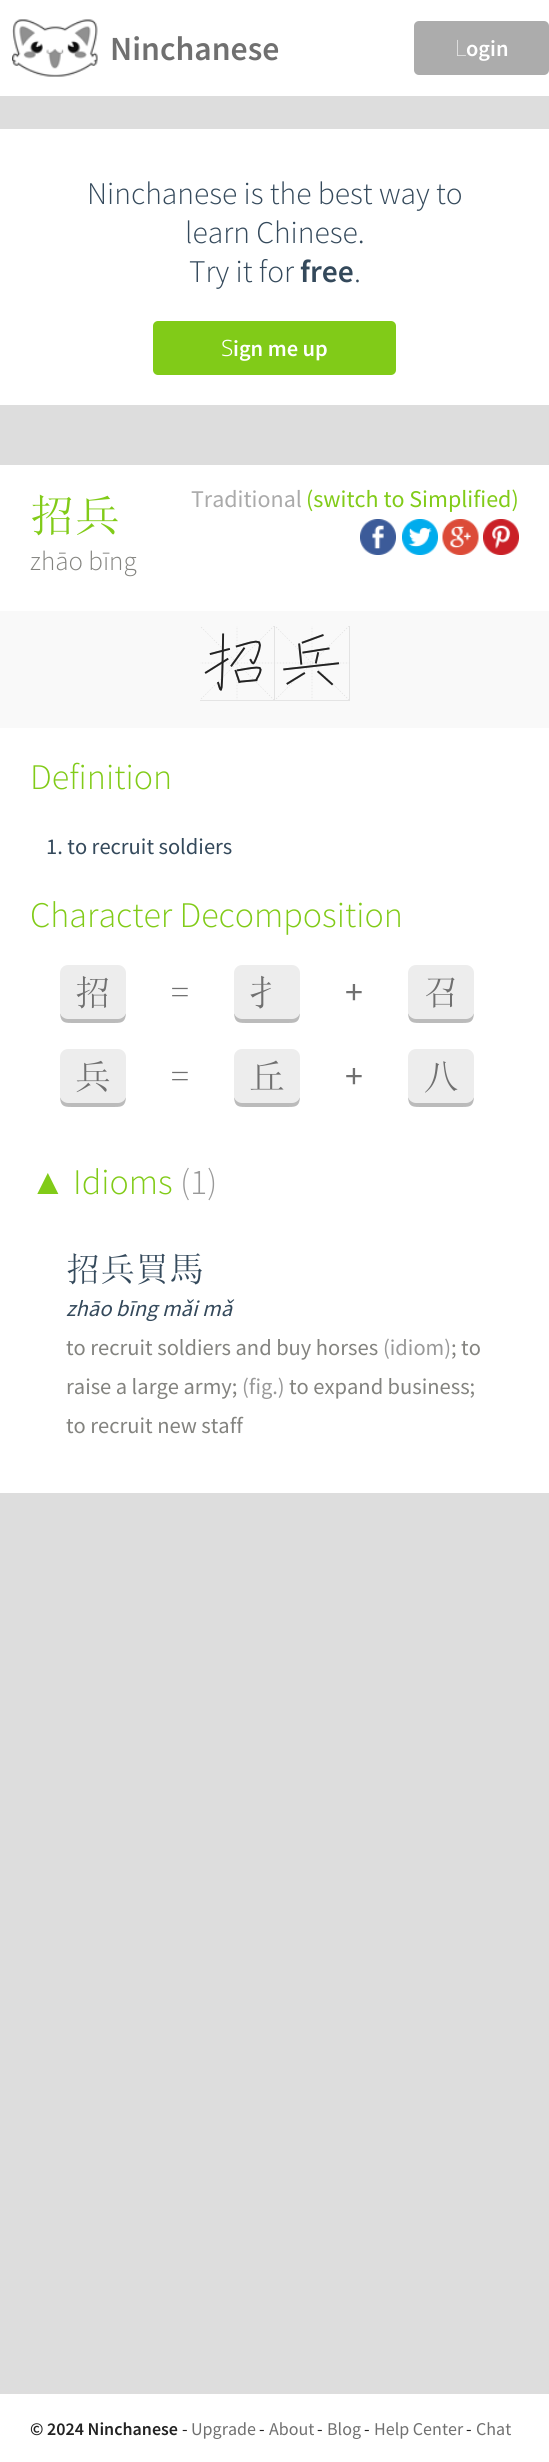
#include <cairo/cairo.h>
#include <math.h>
#include <stddef.h>


static void rounded_rect(cairo_t *cr, double x, double y, double w, double h, double r) {
  cairo_new_sub_path(cr);
  cairo_arc(cr, x + w - r, y + h - r, r, 0, M_PI / 2);
  cairo_arc(cr, x + r, y + h - r, r, M_PI / 2, M_PI);
  cairo_arc(cr, x + r, y + r, r, M_PI, 1.5 * M_PI);
  cairo_arc(cr, x + w - r, y + r, r, 1.5 * M_PI, 2 * M_PI);
  cairo_close_path(cr);
}

static void draw_image(cairo_t *cr, const char *path, double x, double y, double w, double h) {
  cairo_surface_t *image = cairo_image_surface_create_from_png(path);
  cairo_save(cr);
  cairo_set_source_surface(cr, image, x, y);
  cairo_rectangle(cr, x, y, w, h);
  cairo_fill(cr);
  cairo_restore(cr);
  cairo_surface_destroy(image);
}

static void draw(cairo_t *cr) {
  cairo_set_source_rgb(cr, 221 / 255.0, 221 / 255.0, 221 / 255.0);
  cairo_paint(cr);
  cairo_set_source_rgb(cr, 1, 1, 1);
  cairo_rectangle(cr, 0, 0, 549, 96);
  cairo_fill(cr);
  draw_image(cr, "images/1.png", 12, 19, 86, 58);
  cairo_set_source_rgb(cr, 172 / 255.0, 172 / 255.0, 172 / 255.0);
  rounded_rect(cr, 414, 21, 135, 54, 5);
  cairo_fill(cr);
  cairo_set_source_rgb(cr, 1, 1, 1);
  cairo_rectangle(cr, 0, 129, 549, 276);
  cairo_fill(cr);
  cairo_set_source_rgb(cr, 129 / 255.0, 203 / 255.0, 24 / 255.0);
  rounded_rect(cr, 153, 321, 243, 54, 5);
  cairo_fill(cr);
  cairo_set_source_rgb(cr, 1, 1, 1);
  cairo_rectangle(cr, 0, 465, 549, 1028);
  cairo_fill(cr);
  draw_image(cr, "images/2.png", 360, 519, 36, 36);
  draw_image(cr, "images/3.png", 402, 519, 36, 36);
  draw_image(cr, "images/4.png", 442, 519, 37, 36);
  draw_image(cr, "images/5.png", 483, 519, 36, 36);
  cairo_set_source_rgb(cr, 249 / 255.0, 249 / 255.0, 249 / 255.0);
  cairo_rectangle(cr, 0, 611, 549, 117);
  cairo_fill(cr);
  draw_image(cr, "images/6.png", 200, 626, 75, 75);
  draw_image(cr, "images/7.png", 275, 626, 75, 75);
  cairo_set_source_rgb(cr, 187 / 255.0, 187 / 255.0, 187 / 255.0);
  cairo_new_path(cr);
  cairo_move_to(cr, 60, 1011);
  cairo_curve_to(cr, 60, 1024, 65, 1023, 76, 1023);
  cairo_line_to(cr, 110, 1023);
  cairo_curve_to(cr, 121, 1023, 126, 1024, 126, 1011);
  cairo_curve_to(cr, 126, 1015, 123, 1018, 118, 1018);
  cairo_line_to(cr, 68, 1018);
  cairo_curve_to(cr, 63, 1018, 60, 1015, 60, 1011);
  cairo_close_path(cr);
  cairo_fill(cr);
  cairo_set_source_rgb(cr, 237 / 255.0, 237 / 255.0, 237 / 255.0);
  rounded_rect(cr, 60, 965, 66, 54, 8);
  cairo_fill(cr);
  cairo_set_source_rgb(cr, 187 / 255.0, 187 / 255.0, 187 / 255.0);
  cairo_new_path(cr);
  cairo_move_to(cr, 234, 1011);
  cairo_curve_to(cr, 234, 1024, 239, 1023, 250, 1023);
  cairo_line_to(cr, 284, 1023);
  cairo_curve_to(cr, 295, 1023, 300, 1024, 300, 1011);
  cairo_curve_to(cr, 300, 1015, 297, 1018, 292, 1018);
  cairo_line_to(cr, 242, 1018);
  cairo_curve_to(cr, 237, 1018, 234, 1015, 234, 1011);
  cairo_close_path(cr);
  cairo_fill(cr);
  cairo_set_source_rgb(cr, 237 / 255.0, 237 / 255.0, 237 / 255.0);
  rounded_rect(cr, 234, 965, 66, 54, 8);
  cairo_fill(cr);
  cairo_set_source_rgb(cr, 187 / 255.0, 187 / 255.0, 187 / 255.0);
  cairo_new_path(cr);
  cairo_move_to(cr, 408, 1011);
  cairo_curve_to(cr, 408, 1024, 413, 1023, 424, 1023);
  cairo_line_to(cr, 458, 1023);
  cairo_curve_to(cr, 469, 1023, 474, 1024, 474, 1011);
  cairo_curve_to(cr, 474, 1015, 471, 1018, 466, 1018);
  cairo_line_to(cr, 416, 1018);
  cairo_curve_to(cr, 411, 1018, 408, 1015, 408, 1011);
  cairo_close_path(cr);
  cairo_fill(cr);
  cairo_set_source_rgb(cr, 237 / 255.0, 237 / 255.0, 237 / 255.0);
  rounded_rect(cr, 408, 965, 66, 54, 8);
  cairo_fill(cr);
  cairo_set_source_rgb(cr, 187 / 255.0, 187 / 255.0, 187 / 255.0);
  cairo_new_path(cr);
  cairo_move_to(cr, 60, 1095);
  cairo_curve_to(cr, 60, 1108, 65, 1107, 76, 1107);
  cairo_line_to(cr, 110, 1107);
  cairo_curve_to(cr, 121, 1107, 126, 1108, 126, 1095);
  cairo_curve_to(cr, 126, 1099, 123, 1102, 118, 1102);
  cairo_line_to(cr, 68, 1102);
  cairo_curve_to(cr, 63, 1102, 60, 1099, 60, 1095);
  cairo_close_path(cr);
  cairo_fill(cr);
  cairo_set_source_rgb(cr, 237 / 255.0, 237 / 255.0, 237 / 255.0);
  rounded_rect(cr, 60, 1049, 66, 54, 8);
  cairo_fill(cr);
  cairo_set_source_rgb(cr, 187 / 255.0, 187 / 255.0, 187 / 255.0);
  cairo_new_path(cr);
  cairo_move_to(cr, 234, 1095);
  cairo_curve_to(cr, 234, 1108, 239, 1107, 250, 1107);
  cairo_line_to(cr, 284, 1107);
  cairo_curve_to(cr, 295, 1107, 300, 1108, 300, 1095);
  cairo_curve_to(cr, 300, 1099, 297, 1102, 292, 1102);
  cairo_line_to(cr, 242, 1102);
  cairo_curve_to(cr, 237, 1102, 234, 1099, 234, 1095);
  cairo_close_path(cr);
  cairo_fill(cr);
  cairo_set_source_rgb(cr, 237 / 255.0, 237 / 255.0, 237 / 255.0);
  rounded_rect(cr, 234, 1049, 66, 54, 8);
  cairo_fill(cr);
  cairo_set_source_rgb(cr, 187 / 255.0, 187 / 255.0, 187 / 255.0);
  cairo_new_path(cr);
  cairo_move_to(cr, 408, 1095);
  cairo_curve_to(cr, 408, 1108, 413, 1107, 424, 1107);
  cairo_line_to(cr, 458, 1107);
  cairo_curve_to(cr, 469, 1107, 474, 1108, 474, 1095);
  cairo_curve_to(cr, 474, 1099, 471, 1102, 466, 1102);
  cairo_line_to(cr, 416, 1102);
  cairo_curve_to(cr, 411, 1102, 408, 1099, 408, 1095);
  cairo_close_path(cr);
  cairo_fill(cr);
  cairo_set_source_rgb(cr, 237 / 255.0, 237 / 255.0, 237 / 255.0);
  rounded_rect(cr, 408, 1049, 66, 54, 8);
  cairo_fill(cr);
  cairo_set_source_rgb(cr, 1, 1, 1);
  cairo_rectangle(cr, 0, 2394, 549, 68);
  cairo_fill(cr);
  cairo_select_font_face(cr, "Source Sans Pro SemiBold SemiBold", CAIRO_FONT_SLANT_NORMAL, CAIRO_FONT_WEIGHT_NORMAL);
  cairo_set_font_size(cr, 33.75);
  cairo_set_source_rgb(cr, 112 / 255.0, 112 / 255.0, 112 / 255.0);
  cairo_move_to(cr, 110, 60);
  cairo_show_text(cr, "Ninchanese");
  cairo_select_font_face(cr, "Noto Sans Thin", CAIRO_FONT_SLANT_NORMAL, CAIRO_FONT_WEIGHT_NORMAL);
  cairo_set_font_size(cr, 22.5);
  cairo_set_source_rgb(cr, 1, 1, 1);
  cairo_move_to(cr, 455, 56);
  cairo_show_text(cr, "L");
  cairo_select_font_face(cr, "Source Sans Pro SemiBold SemiBold", CAIRO_FONT_SLANT_NORMAL, CAIRO_FONT_WEIGHT_NORMAL);
  cairo_move_to(cr, 466, 56);
  cairo_show_text(cr, "ogin");
  cairo_select_font_face(cr, "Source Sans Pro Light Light", CAIRO_FONT_SLANT_NORMAL, CAIRO_FONT_WEIGHT_NORMAL);
  cairo_set_font_size(cr, 31.5);
  cairo_set_source_rgb(cr, 52 / 255.0, 73 / 255.0, 91 / 255.0);
  cairo_move_to(cr, 87, 204);
  cairo_show_text(cr, "Ninchanese is the best way to");
  cairo_move_to(cr, 185, 243);
  cairo_show_text(cr, "learn Chinese.");
  cairo_move_to(cr, 189, 282);
  cairo_show_text(cr, "Try it for");
  cairo_select_font_face(cr, "Source Sans Pro SemiBold SemiBold", CAIRO_FONT_SLANT_NORMAL, CAIRO_FONT_WEIGHT_NORMAL);
  cairo_move_to(cr, 300, 282);
  cairo_show_text(cr, "free");
  cairo_select_font_face(cr, "Source Sans Pro Light Light", CAIRO_FONT_SLANT_NORMAL, CAIRO_FONT_WEIGHT_NORMAL);
  cairo_move_to(cr, 354, 282);
  cairo_show_text(cr, ".");
  cairo_select_font_face(cr, "Noto Sans Light", CAIRO_FONT_SLANT_NORMAL, CAIRO_FONT_WEIGHT_NORMAL);
  cairo_set_font_size(cr, 22.5);
  cairo_set_source_rgb(cr, 1, 1, 1);
  cairo_move_to(cr, 221, 356);
  cairo_show_text(cr, "S");
  cairo_select_font_face(cr, "Source Sans Pro SemiBold SemiBold", CAIRO_FONT_SLANT_NORMAL, CAIRO_FONT_WEIGHT_NORMAL);
  cairo_move_to(cr, 233, 356);
  cairo_show_text(cr, "ign me up");
  cairo_select_font_face(cr, "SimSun", CAIRO_FONT_SLANT_NORMAL, CAIRO_FONT_WEIGHT_NORMAL);
  cairo_set_font_size(cr, 45);
  cairo_set_source_rgb(cr, 129 / 255.0, 203 / 255.0, 24 / 255.0);
  cairo_move_to(cr, 30, 531);
  cairo_show_text(cr, "招兵");
  cairo_select_font_face(cr, "Source Sans Pro", CAIRO_FONT_SLANT_NORMAL, CAIRO_FONT_WEIGHT_NORMAL);
  cairo_set_font_size(cr, 24);
  cairo_set_source_rgb(cr, 170 / 255.0, 170 / 255.0, 170 / 255.0);
  cairo_move_to(cr, 191, 507);
  cairo_show_text(cr, "Traditional");
  cairo_set_source_rgb(cr, 129 / 255.0, 203 / 255.0, 24 / 255.0);
  cairo_move_to(cr, 306, 507);
  cairo_show_text(cr, "(switch to Simplified)");
  cairo_select_font_face(cr, "Source Sans Pro Light Light", CAIRO_FONT_SLANT_NORMAL, CAIRO_FONT_WEIGHT_NORMAL);
  cairo_set_font_size(cr, 27);
  cairo_set_source_rgb(cr, 131 / 255.0, 131 / 255.0, 127 / 255.0);
  cairo_move_to(cr, 30, 570);
  cairo_show_text(cr, "zhāo bīng");
  cairo_set_font_size(cr, 36);
  cairo_set_source_rgb(cr, 129 / 255.0, 203 / 255.0, 24 / 255.0);
  cairo_move_to(cr, 30, 789);
  cairo_show_text(cr, "Definition");
  cairo_select_font_face(cr, "Source Sans Pro", CAIRO_FONT_SLANT_NORMAL, CAIRO_FONT_WEIGHT_NORMAL);
  cairo_set_font_size(cr, 22.5);
  cairo_set_source_rgb(cr, 52 / 255.0, 73 / 255.0, 91 / 255.0);
  cairo_move_to(cr, 46, 854);
  cairo_show_text(cr, "1. to recruit soldiers");
  cairo_select_font_face(cr, "Source Sans Pro Light Light", CAIRO_FONT_SLANT_NORMAL, CAIRO_FONT_WEIGHT_NORMAL);
  cairo_set_font_size(cr, 36);
  cairo_set_source_rgb(cr, 129 / 255.0, 203 / 255.0, 24 / 255.0);
  cairo_move_to(cr, 30, 927);
  cairo_show_text(cr, "Character Decomposition");
  cairo_select_font_face(cr, "SimSun", CAIRO_FONT_SLANT_NORMAL, CAIRO_FONT_WEIGHT_NORMAL);
  cairo_set_source_rgb(cr, 112 / 255.0, 112 / 255.0, 112 / 255.0);
  cairo_move_to(cr, 75, 1005);
  cairo_show_text(cr, "招");
  cairo_move_to(cr, 171, 1005);
  cairo_show_text(cr, "=");
  cairo_move_to(cr, 249, 1005);
  cairo_show_text(cr, "扌");
  cairo_select_font_face(cr, "Source Sans Pro", CAIRO_FONT_SLANT_NORMAL, CAIRO_FONT_WEIGHT_NORMAL);
  cairo_move_to(cr, 345, 1004);
  cairo_show_text(cr, "+");
  cairo_select_font_face(cr, "SimSun", CAIRO_FONT_SLANT_NORMAL, CAIRO_FONT_WEIGHT_NORMAL);
  cairo_move_to(cr, 423, 1005);
  cairo_show_text(cr, "召");
  cairo_move_to(cr, 75, 1089);
  cairo_show_text(cr, "兵");
  cairo_move_to(cr, 171, 1089);
  cairo_show_text(cr, "=");
  cairo_move_to(cr, 249, 1089);
  cairo_show_text(cr, "丘");
  cairo_select_font_face(cr, "Source Sans Pro", CAIRO_FONT_SLANT_NORMAL, CAIRO_FONT_WEIGHT_NORMAL);
  cairo_move_to(cr, 345, 1088);
  cairo_show_text(cr, "+");
  cairo_select_font_face(cr, "SimSun", CAIRO_FONT_SLANT_NORMAL, CAIRO_FONT_WEIGHT_NORMAL);
  cairo_move_to(cr, 423, 1089);
  cairo_show_text(cr, "八");
  cairo_select_font_face(cr, "Liberation Sans", CAIRO_FONT_SLANT_NORMAL, CAIRO_FONT_WEIGHT_NORMAL);
  cairo_set_source_rgb(cr, 129 / 255.0, 203 / 255.0, 24 / 255.0);
  cairo_move_to(cr, 30, 1194);
  cairo_show_text(cr, "▲");
  cairo_select_font_face(cr, "Source Sans Pro Light Light", CAIRO_FONT_SLANT_NORMAL, CAIRO_FONT_WEIGHT_NORMAL);
  cairo_move_to(cr, 73, 1194);
  cairo_show_text(cr, "Idioms");
  cairo_set_source_rgb(cr, 153 / 255.0, 153 / 255.0, 153 / 255.0);
  cairo_move_to(cr, 180, 1194);
  cairo_show_text(cr, "(1)");
  cairo_select_font_face(cr, "SimSun", CAIRO_FONT_SLANT_NORMAL, CAIRO_FONT_WEIGHT_NORMAL);
  cairo_set_font_size(cr, 34.5);
  cairo_set_source_rgb(cr, 52 / 255.0, 73 / 255.0, 91 / 255.0);
  cairo_move_to(cr, 66, 1281);
  cairo_show_text(cr, "招兵買馬");
  cairo_select_font_face(cr, "Source Sans Pro", CAIRO_FONT_SLANT_ITALIC, CAIRO_FONT_WEIGHT_NORMAL);
  cairo_set_font_size(cr, 22.5);
  cairo_move_to(cr, 66, 1316);
  cairo_show_text(cr, "zhāo bīng mǎi mǎ");
  cairo_select_font_face(cr, "Source Sans Pro", CAIRO_FONT_SLANT_NORMAL, CAIRO_FONT_WEIGHT_NORMAL);
  cairo_set_source_rgb(cr, 131 / 255.0, 131 / 255.0, 127 / 255.0);
  cairo_move_to(cr, 66, 1355);
  cairo_show_text(cr, "to recruit soldiers and buy horses");
  cairo_set_source_rgb(cr, 153 / 255.0, 153 / 255.0, 153 / 255.0);
  cairo_move_to(cr, 383, 1355);
  cairo_show_text(cr, "(idiom)");
  cairo_set_source_rgb(cr, 131 / 255.0, 131 / 255.0, 127 / 255.0);
  cairo_move_to(cr, 451, 1355);
  cairo_show_text(cr, "; to");
  cairo_move_to(cr, 66, 1394);
  cairo_show_text(cr, "raise a large army;");
  cairo_set_source_rgb(cr, 153 / 255.0, 153 / 255.0, 153 / 255.0);
  cairo_move_to(cr, 242, 1394);
  cairo_show_text(cr, "(fig.)");
  cairo_set_source_rgb(cr, 131 / 255.0, 131 / 255.0, 127 / 255.0);
  cairo_move_to(cr, 289, 1394);
  cairo_show_text(cr, "to expand business;");
  cairo_move_to(cr, 66, 1433);
  cairo_show_text(cr, "to recruit new staff");
  cairo_select_font_face(cr, "Source Sans Pro SemiBold SemiBold", CAIRO_FONT_SLANT_NORMAL, CAIRO_FONT_WEIGHT_NORMAL);
  cairo_set_font_size(cr, 18);
  cairo_set_source_rgb(cr, 34 / 255.0, 34 / 255.0, 34 / 255.0);
  cairo_move_to(cr, 30, 2435);
  cairo_show_text(cr, "© 2024 Ninchanese");
  cairo_select_font_face(cr, "Source Sans Pro", CAIRO_FONT_SLANT_NORMAL, CAIRO_FONT_WEIGHT_NORMAL);
  cairo_move_to(cr, 182, 2435);
  cairo_show_text(cr, "-");
  cairo_set_source_rgb(cr, 112 / 255.0, 112 / 255.0, 112 / 255.0);
  cairo_move_to(cr, 191, 2435);
  cairo_show_text(cr, "Upgrade");
  cairo_set_source_rgb(cr, 34 / 255.0, 34 / 255.0, 34 / 255.0);
  cairo_move_to(cr, 259, 2435);
  cairo_show_text(cr, "-");
  cairo_set_source_rgb(cr, 112 / 255.0, 112 / 255.0, 112 / 255.0);
  cairo_move_to(cr, 269, 2435);
  cairo_show_text(cr, "About");
  cairo_set_source_rgb(cr, 34 / 255.0, 34 / 255.0, 34 / 255.0);
  cairo_move_to(cr, 317, 2435);
  cairo_show_text(cr, "-");
  cairo_set_source_rgb(cr, 112 / 255.0, 112 / 255.0, 112 / 255.0);
  cairo_move_to(cr, 327, 2435);
  cairo_show_text(cr, "Blog");
  cairo_set_source_rgb(cr, 34 / 255.0, 34 / 255.0, 34 / 255.0);
  cairo_move_to(cr, 364, 2435);
  cairo_show_text(cr, "-");
  cairo_set_source_rgb(cr, 112 / 255.0, 112 / 255.0, 112 / 255.0);
  cairo_move_to(cr, 374, 2435);
  cairo_show_text(cr, "Help Center");
  cairo_set_source_rgb(cr, 34 / 255.0, 34 / 255.0, 34 / 255.0);
  cairo_move_to(cr, 466, 2435);
  cairo_show_text(cr, "-");
  cairo_set_source_rgb(cr, 112 / 255.0, 112 / 255.0, 112 / 255.0);
  cairo_move_to(cr, 476, 2435);
  cairo_show_text(cr, "Chat");
}

int main(void) {
  cairo_surface_t *surface = cairo_image_surface_create(CAIRO_FORMAT_RGB24, 549, 2462);
  cairo_t *cr = cairo_create(surface);
  cairo_font_options_t *options = cairo_font_options_create();
  cairo_font_options_set_hint_metrics(options, CAIRO_HINT_METRICS_OFF);
  cairo_font_options_set_hint_style(options, CAIRO_HINT_STYLE_NONE);
  cairo_set_font_options(cr, options);
  cairo_set_miter_limit(cr, 4);
  draw(cr);
  cairo_surface_write_to_png(surface, "out.png");
  cairo_font_options_destroy(options);
  cairo_destroy(cr);
  cairo_surface_destroy(surface);
  return 0;
}
